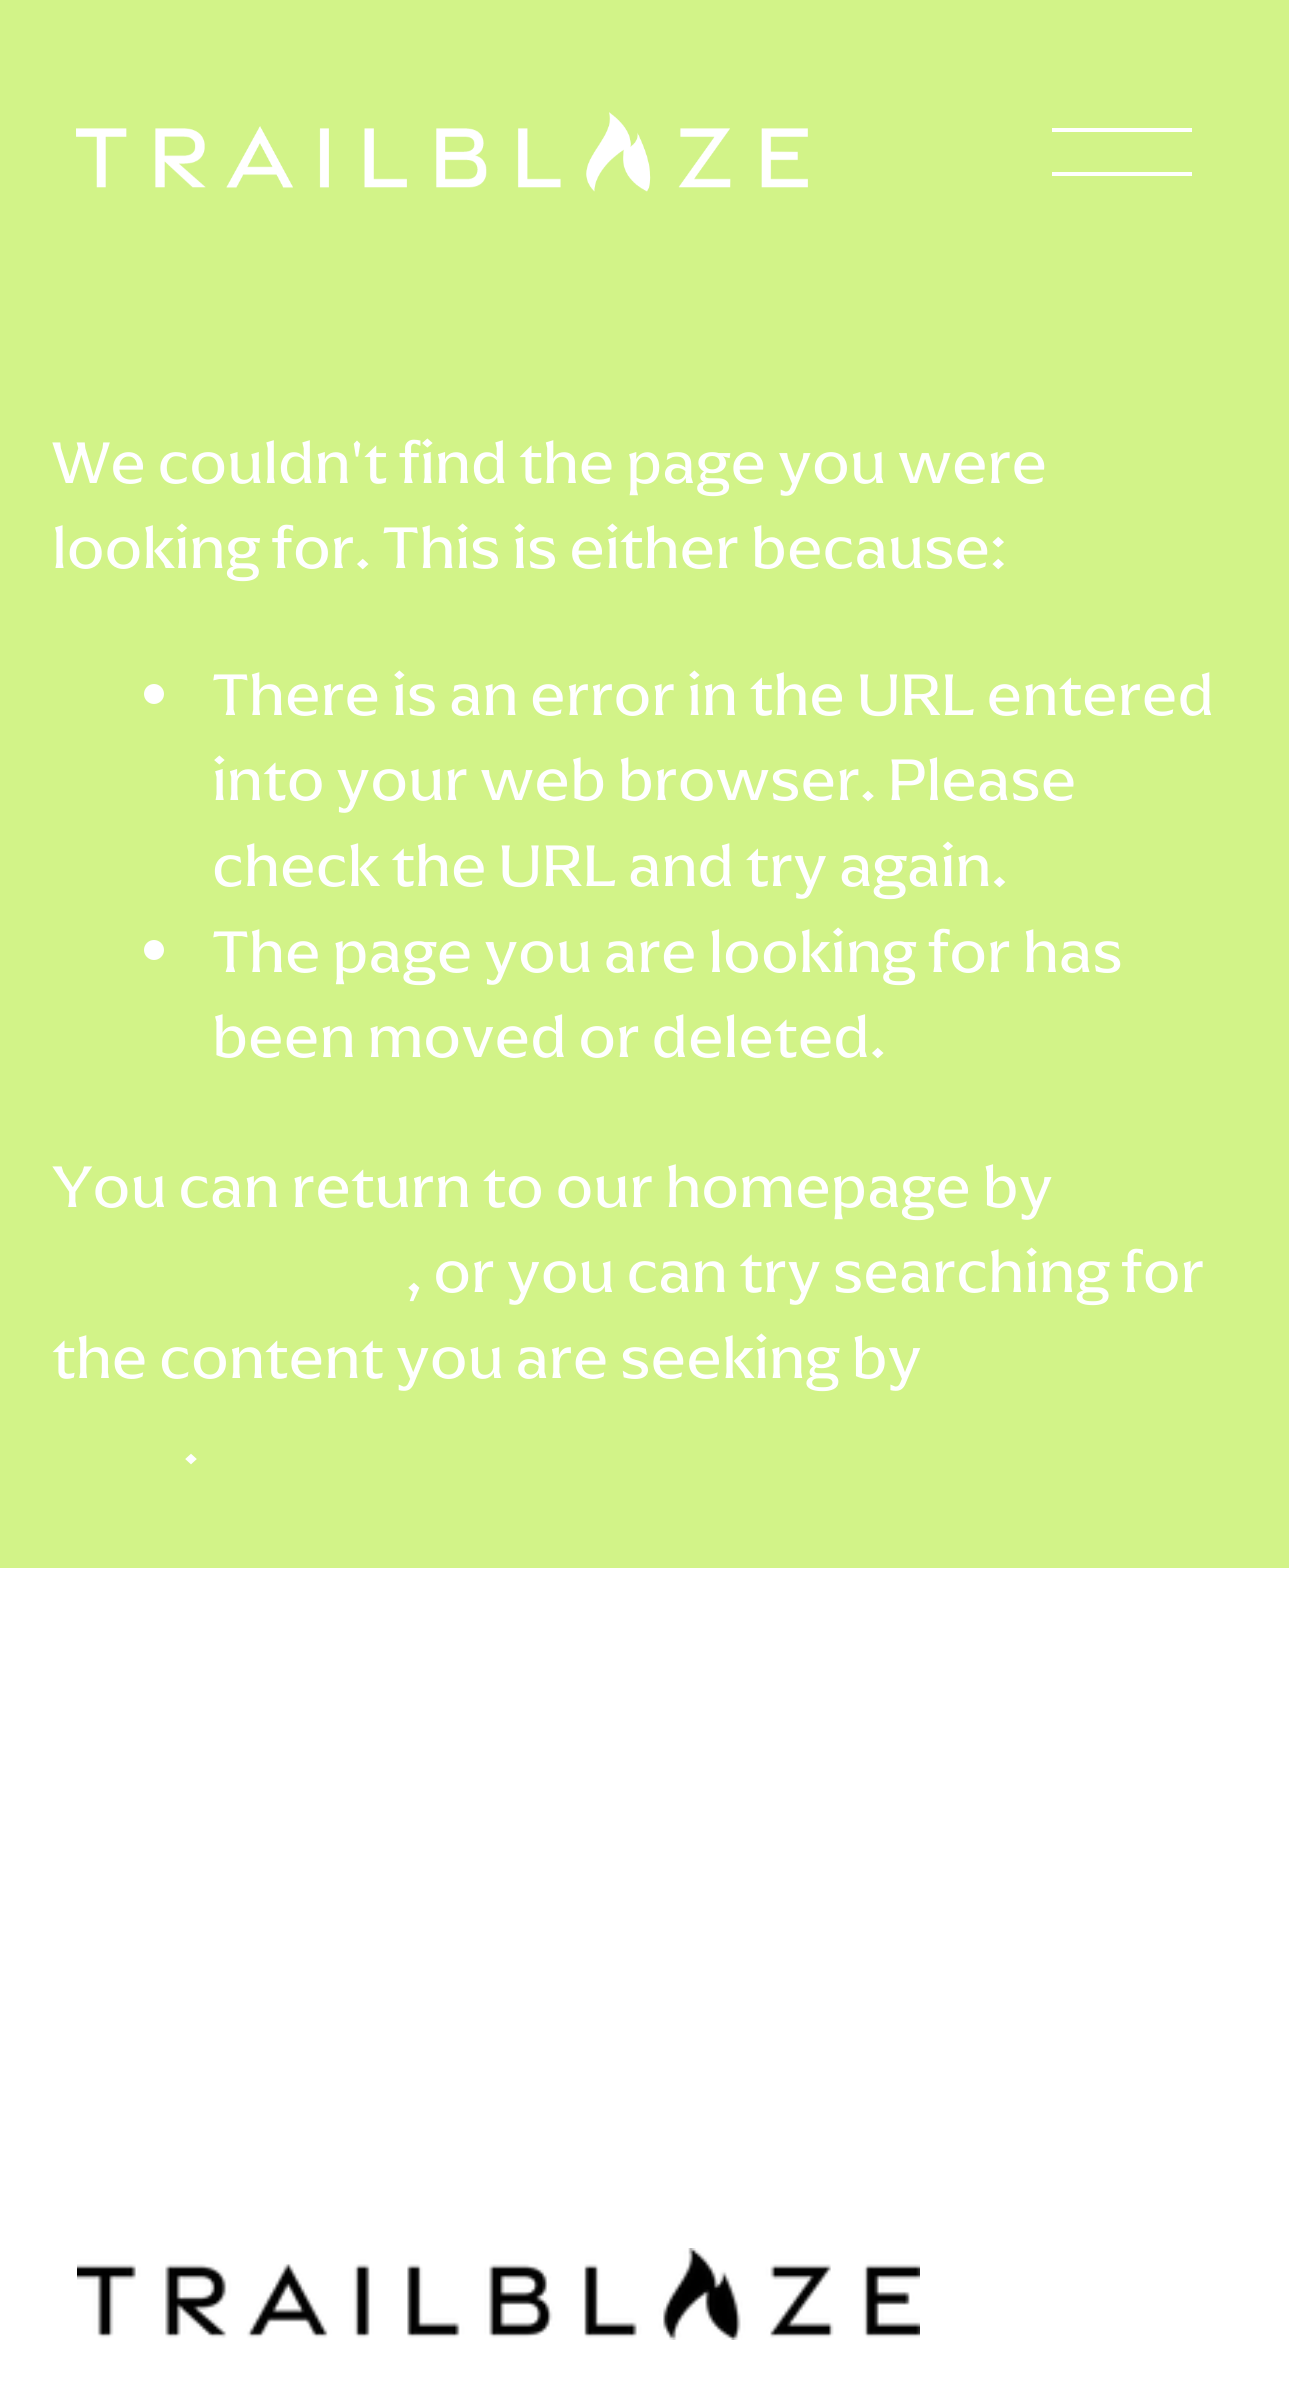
#include <cairo/cairo.h>
#include <math.h>
#include <stddef.h>


static void draw_image(cairo_t *cr, const char *path, double x, double y, double w, double h) {
  cairo_surface_t *image = cairo_image_surface_create_from_png(path);
  cairo_save(cr);
  cairo_set_source_surface(cr, image, x, y);
  cairo_rectangle(cr, x, y, w, h);
  cairo_fill(cr);
  cairo_restore(cr);
  cairo_surface_destroy(image);
}

static void draw(cairo_t *cr) {
  cairo_set_source_rgb(cr, 210 / 255.0, 243 / 255.0, 136 / 255.0);
  cairo_paint(cr);
  draw_image(cr, "images/1.png", 76, 112, 732, 80);
  cairo_set_source_rgb(cr, 1, 1, 1);
  cairo_rectangle(cr, 1052, 128, 140, 4);
  cairo_fill(cr);
  cairo_rectangle(cr, 1052, 172, 140, 4);
  cairo_fill(cr);
  cairo_arc(cr, 154, 694, 10, 0, 2 * M_PI);
  cairo_fill(cr);
  cairo_arc(cr, 154, 950, 10, 0, 2 * M_PI);
  cairo_fill(cr);
  cairo_rectangle(cr, 0, 1568, 1289, 829);
  cairo_fill(cr);
  draw_image(cr, "images/2.png", 77, 2248, 843, 92);
  cairo_select_font_face(cr, "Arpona", CAIRO_FONT_SLANT_NORMAL, CAIRO_FONT_WEIGHT_NORMAL);
  cairo_set_font_size(cr, 61.1);
  cairo_move_to(cr, 52, 483);
  cairo_show_text(cr, "We couldn't find the page you were");
  cairo_move_to(cr, 52, 568);
  cairo_show_text(cr, "looking for. This is either because:");
  cairo_move_to(cr, 212, 715);
  cairo_show_text(cr, "There is an error in the URL entered");
  cairo_move_to(cr, 212, 800);
  cairo_show_text(cr, "into your web browser. Please");
  cairo_move_to(cr, 212, 886);
  cairo_show_text(cr, "check the URL and try again.");
  cairo_move_to(cr, 212, 972);
  cairo_show_text(cr, "The page you are looking for has");
  cairo_move_to(cr, 212, 1057);
  cairo_show_text(cr, "been moved or deleted.");
  cairo_move_to(cr, 52, 1207);
  cairo_show_text(cr, "You can return to our homepage by");
  cairo_move_to(cr, 406, 1292);
  cairo_show_text(cr, ", or you can try searching for");
  cairo_move_to(cr, 52, 1378);
  cairo_show_text(cr, "the content you are seeking by");
  cairo_move_to(cr, 183, 1463);
  cairo_show_text(cr, ".");
}

int main(void) {
  cairo_surface_t *surface = cairo_image_surface_create(CAIRO_FORMAT_RGB24, 1289, 2397);
  cairo_t *cr = cairo_create(surface);
  cairo_font_options_t *options = cairo_font_options_create();
  cairo_font_options_set_hint_metrics(options, CAIRO_HINT_METRICS_OFF);
  cairo_font_options_set_hint_style(options, CAIRO_HINT_STYLE_NONE);
  cairo_set_font_options(cr, options);
  cairo_set_miter_limit(cr, 4);
  draw(cr);
  cairo_surface_write_to_png(surface, "out.png");
  cairo_font_options_destroy(options);
  cairo_destroy(cr);
  cairo_surface_destroy(surface);
  return 0;
}
